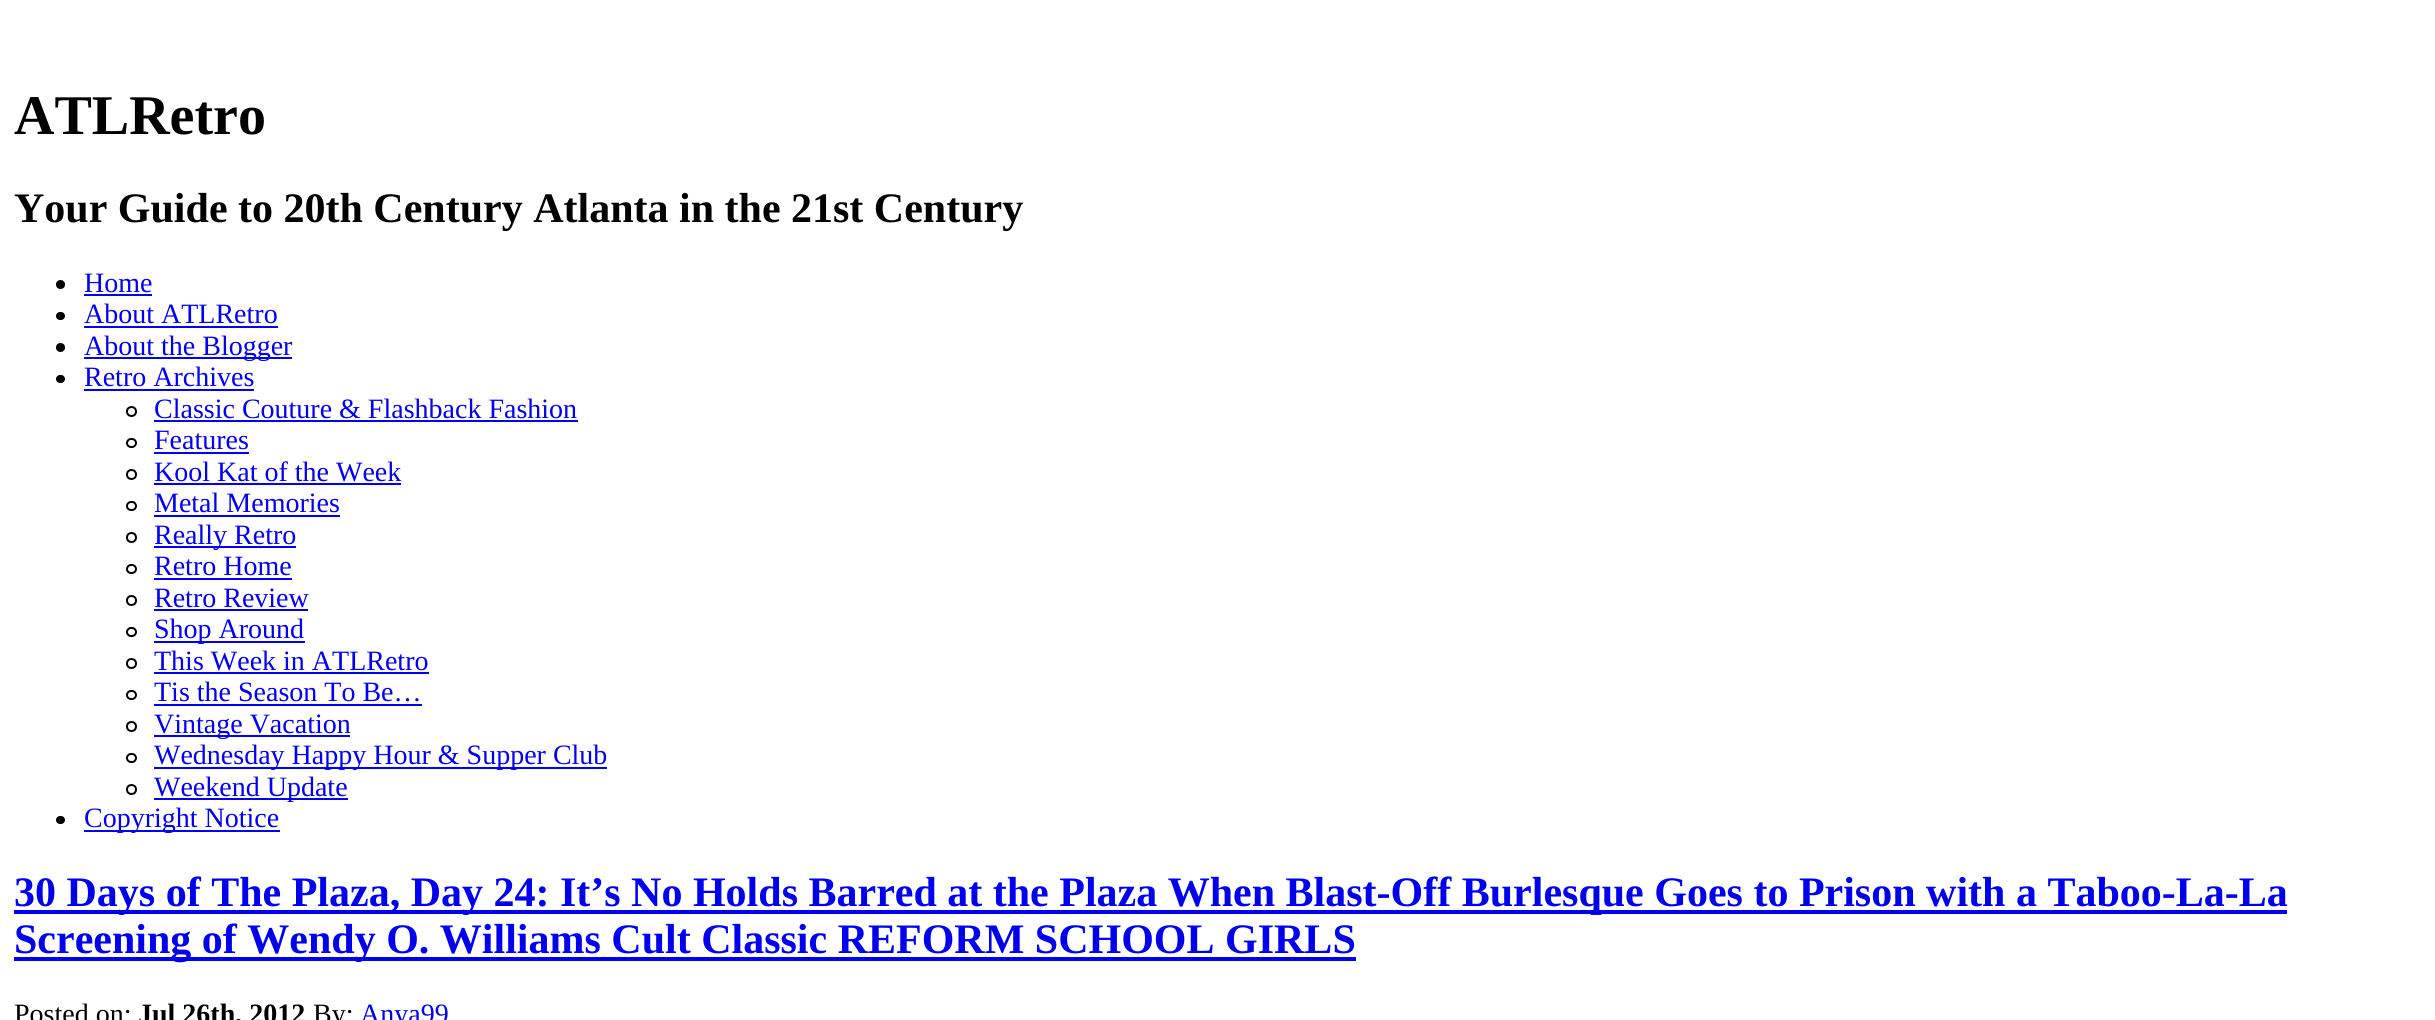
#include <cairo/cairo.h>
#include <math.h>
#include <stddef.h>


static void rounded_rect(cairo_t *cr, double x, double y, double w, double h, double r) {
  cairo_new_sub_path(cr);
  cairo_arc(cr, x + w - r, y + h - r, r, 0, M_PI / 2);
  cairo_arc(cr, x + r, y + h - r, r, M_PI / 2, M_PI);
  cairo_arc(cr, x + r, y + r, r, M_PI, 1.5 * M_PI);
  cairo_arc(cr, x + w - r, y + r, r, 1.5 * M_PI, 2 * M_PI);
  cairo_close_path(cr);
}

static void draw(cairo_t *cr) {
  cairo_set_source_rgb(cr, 1, 1, 1);
  cairo_paint(cr);
  cairo_set_source_rgb(cr, 0, 0, 0);
  cairo_arc(cr, 60.5, 284.5, 4.5, 0, 2 * M_PI);
  cairo_fill(cr);
  cairo_set_source_rgb(cr, 0, 0, 238 / 255.0);
  cairo_rectangle(cr, 84, 294, 68, 2);
  cairo_fill(cr);
  cairo_set_source_rgb(cr, 0, 0, 0);
  rounded_rect(cr, 56, 312, 9, 8, 4);
  cairo_fill(cr);
  cairo_set_source_rgb(cr, 0, 0, 238 / 255.0);
  cairo_rectangle(cr, 84, 326, 194, 2);
  cairo_fill(cr);
  cairo_set_source_rgb(cr, 0, 0, 0);
  cairo_arc(cr, 60.5, 347.5, 4.5, 0, 2 * M_PI);
  cairo_fill(cr);
  cairo_set_source_rgb(cr, 0, 0, 238 / 255.0);
  cairo_rectangle(cr, 84, 357, 208, 2);
  cairo_fill(cr);
  cairo_set_source_rgb(cr, 0, 0, 0);
  rounded_rect(cr, 56, 375, 9, 8, 4);
  cairo_fill(cr);
  cairo_set_source_rgb(cr, 0, 0, 238 / 255.0);
  cairo_rectangle(cr, 84, 389, 170, 2);
  cairo_fill(cr);
  cairo_arc(cr, 131.5, 411.5, 4.5, 0, 2 * M_PI);
  cairo_set_source_rgb(cr, 0, 0, 0);
  cairo_stroke(cr);
  cairo_set_source_rgb(cr, 0, 0, 238 / 255.0);
  cairo_rectangle(cr, 154, 420, 424, 2);
  cairo_fill(cr);
  rounded_rect(cr, 127, 439, 9, 8, 4);
  cairo_set_source_rgb(cr, 0, 0, 0);
  cairo_stroke(cr);
  cairo_set_source_rgb(cr, 0, 0, 238 / 255.0);
  cairo_rectangle(cr, 154, 452, 95, 2);
  cairo_fill(cr);
  cairo_arc(cr, 131.5, 474.5, 4.5, 0, 2 * M_PI);
  cairo_set_source_rgb(cr, 0, 0, 0);
  cairo_stroke(cr);
  cairo_set_source_rgb(cr, 0, 0, 238 / 255.0);
  cairo_rectangle(cr, 154, 483, 247, 2);
  cairo_fill(cr);
  rounded_rect(cr, 127, 502, 9, 8, 4);
  cairo_set_source_rgb(cr, 0, 0, 0);
  cairo_stroke(cr);
  cairo_set_source_rgb(cr, 0, 0, 238 / 255.0);
  cairo_rectangle(cr, 154, 515, 186, 2);
  cairo_fill(cr);
  cairo_arc(cr, 131.5, 537.5, 4.5, 0, 2 * M_PI);
  cairo_set_source_rgb(cr, 0, 0, 0);
  cairo_stroke(cr);
  cairo_set_source_rgb(cr, 0, 0, 238 / 255.0);
  cairo_rectangle(cr, 154, 546, 142, 2);
  cairo_fill(cr);
  rounded_rect(cr, 127, 565, 9, 8, 4);
  cairo_set_source_rgb(cr, 0, 0, 0);
  cairo_stroke(cr);
  cairo_set_source_rgb(cr, 0, 0, 238 / 255.0);
  cairo_rectangle(cr, 154, 578, 138, 2);
  cairo_fill(cr);
  cairo_arc(cr, 131.5, 600.5, 4.5, 0, 2 * M_PI);
  cairo_set_source_rgb(cr, 0, 0, 0);
  cairo_stroke(cr);
  cairo_set_source_rgb(cr, 0, 0, 238 / 255.0);
  cairo_rectangle(cr, 154, 609, 154, 2);
  cairo_fill(cr);
  rounded_rect(cr, 127, 628, 9, 8, 4);
  cairo_set_source_rgb(cr, 0, 0, 0);
  cairo_stroke(cr);
  cairo_set_source_rgb(cr, 0, 0, 238 / 255.0);
  cairo_rectangle(cr, 154, 641, 151, 2);
  cairo_fill(cr);
  cairo_arc(cr, 131.5, 663.5, 4.5, 0, 2 * M_PI);
  cairo_set_source_rgb(cr, 0, 0, 0);
  cairo_stroke(cr);
  cairo_set_source_rgb(cr, 0, 0, 238 / 255.0);
  cairo_rectangle(cr, 154, 672, 275, 2);
  cairo_fill(cr);
  rounded_rect(cr, 127, 691, 9, 8, 4);
  cairo_set_source_rgb(cr, 0, 0, 0);
  cairo_stroke(cr);
  cairo_set_source_rgb(cr, 0, 0, 238 / 255.0);
  cairo_rectangle(cr, 154, 704, 268, 2);
  cairo_fill(cr);
  cairo_arc(cr, 131.5, 726.5, 4.5, 0, 2 * M_PI);
  cairo_set_source_rgb(cr, 0, 0, 0);
  cairo_stroke(cr);
  cairo_set_source_rgb(cr, 0, 0, 238 / 255.0);
  cairo_rectangle(cr, 154, 735, 196, 2);
  cairo_fill(cr);
  rounded_rect(cr, 127, 754, 9, 8, 4);
  cairo_set_source_rgb(cr, 0, 0, 0);
  cairo_stroke(cr);
  cairo_set_source_rgb(cr, 0, 0, 238 / 255.0);
  cairo_rectangle(cr, 154, 767, 453, 2);
  cairo_fill(cr);
  cairo_arc(cr, 131.5, 789.5, 4.5, 0, 2 * M_PI);
  cairo_set_source_rgb(cr, 0, 0, 0);
  cairo_stroke(cr);
  cairo_set_source_rgb(cr, 0, 0, 238 / 255.0);
  cairo_rectangle(cr, 154, 798, 194, 2);
  cairo_fill(cr);
  cairo_set_source_rgb(cr, 0, 0, 0);
  rounded_rect(cr, 56, 816, 9, 8, 4);
  cairo_fill(cr);
  cairo_set_source_rgb(cr, 0, 0, 238 / 255.0);
  cairo_rectangle(cr, 84, 830, 196, 2);
  cairo_fill(cr);
  cairo_rectangle(cr, 14, 910, 2273, 4);
  cairo_fill(cr);
  cairo_rectangle(cr, 14, 957, 1342, 4);
  cairo_fill(cr);
  cairo_select_font_face(cr, "Liberation Serif", CAIRO_FONT_SLANT_NORMAL, CAIRO_FONT_WEIGHT_BOLD);
  cairo_set_font_size(cr, 56);
  cairo_set_source_rgb(cr, 0, 0, 0);
  cairo_move_to(cr, 14, 134);
  cairo_show_text(cr, "ATLRetro");
  cairo_set_font_size(cr, 42);
  cairo_move_to(cr, 14, 222);
  cairo_show_text(cr, "Your Guide to 20th Century Atlanta in the 21st Century");
  cairo_select_font_face(cr, "Liberation Serif", CAIRO_FONT_SLANT_NORMAL, CAIRO_FONT_WEIGHT_NORMAL);
  cairo_set_font_size(cr, 28);
  cairo_set_source_rgb(cr, 0, 0, 238 / 255.0);
  cairo_move_to(cr, 84, 292);
  cairo_show_text(cr, "Home");
  cairo_move_to(cr, 84, 323);
  cairo_show_text(cr, "About ATLRetro");
  cairo_move_to(cr, 84, 355);
  cairo_show_text(cr, "About the Blogger");
  cairo_move_to(cr, 84, 386);
  cairo_show_text(cr, "Retro Archives");
  cairo_move_to(cr, 154, 418);
  cairo_show_text(cr, "Classic Couture & Flashback Fashion");
  cairo_move_to(cr, 154, 449);
  cairo_show_text(cr, "Features");
  cairo_move_to(cr, 154, 481);
  cairo_show_text(cr, "Kool Kat of the Week");
  cairo_move_to(cr, 154, 512);
  cairo_show_text(cr, "Metal Memories");
  cairo_move_to(cr, 154, 544);
  cairo_show_text(cr, "Really Retro");
  cairo_move_to(cr, 154, 575);
  cairo_show_text(cr, "Retro Home");
  cairo_move_to(cr, 154, 607);
  cairo_show_text(cr, "Retro Review");
  cairo_move_to(cr, 154, 638);
  cairo_show_text(cr, "Shop Around");
  cairo_move_to(cr, 154, 670);
  cairo_show_text(cr, "This Week in ATLRetro");
  cairo_move_to(cr, 154, 701);
  cairo_show_text(cr, "Tis the Season To Be…");
  cairo_move_to(cr, 154, 733);
  cairo_show_text(cr, "Vintage Vacation");
  cairo_move_to(cr, 154, 764);
  cairo_show_text(cr, "Wednesday Happy Hour & Supper Club");
  cairo_move_to(cr, 154, 796);
  cairo_show_text(cr, "Weekend Update");
  cairo_move_to(cr, 84, 827);
  cairo_show_text(cr, "Copyright Notice");
  cairo_select_font_face(cr, "Liberation Serif", CAIRO_FONT_SLANT_NORMAL, CAIRO_FONT_WEIGHT_BOLD);
  cairo_set_font_size(cr, 42);
  cairo_move_to(cr, 14, 906);
  cairo_show_text(cr, "30 Days of The Plaza, Day 24: It’s No Holds Barred at the Plaza When Blast-Off Burlesque Goes to Prison with a Taboo-La-La");
  cairo_move_to(cr, 14, 953);
  cairo_show_text(cr, "Screening of Wendy O. Williams Cult Classic REFORM SCHOOL GIRLS");
  cairo_select_font_face(cr, "Liberation Serif", CAIRO_FONT_SLANT_NORMAL, CAIRO_FONT_WEIGHT_NORMAL);
  cairo_set_font_size(cr, 28);
  cairo_set_source_rgb(cr, 0, 0, 0);
  cairo_move_to(cr, 14, 1023);
  cairo_show_text(cr, "Posted on:");
  cairo_select_font_face(cr, "Liberation Serif", CAIRO_FONT_SLANT_NORMAL, CAIRO_FONT_WEIGHT_BOLD);
  cairo_move_to(cr, 138, 1023);
  cairo_show_text(cr, "Jul 26th, 2012");
  cairo_select_font_face(cr, "Liberation Serif", CAIRO_FONT_SLANT_NORMAL, CAIRO_FONT_WEIGHT_NORMAL);
  cairo_move_to(cr, 313, 1023);
  cairo_show_text(cr, "By:");
  cairo_set_source_rgb(cr, 0, 0, 238 / 255.0);
  cairo_move_to(cr, 360, 1023);
  cairo_show_text(cr, "Anya99");
}

int main(void) {
  cairo_surface_t *surface = cairo_image_surface_create(CAIRO_FORMAT_RGB24, 2435, 1020);
  cairo_t *cr = cairo_create(surface);
  cairo_font_options_t *options = cairo_font_options_create();
  cairo_font_options_set_hint_metrics(options, CAIRO_HINT_METRICS_OFF);
  cairo_font_options_set_hint_style(options, CAIRO_HINT_STYLE_NONE);
  cairo_set_font_options(cr, options);
  cairo_set_miter_limit(cr, 4);
  draw(cr);
  cairo_surface_write_to_png(surface, "out.png");
  cairo_font_options_destroy(options);
  cairo_destroy(cr);
  cairo_surface_destroy(surface);
  return 0;
}
